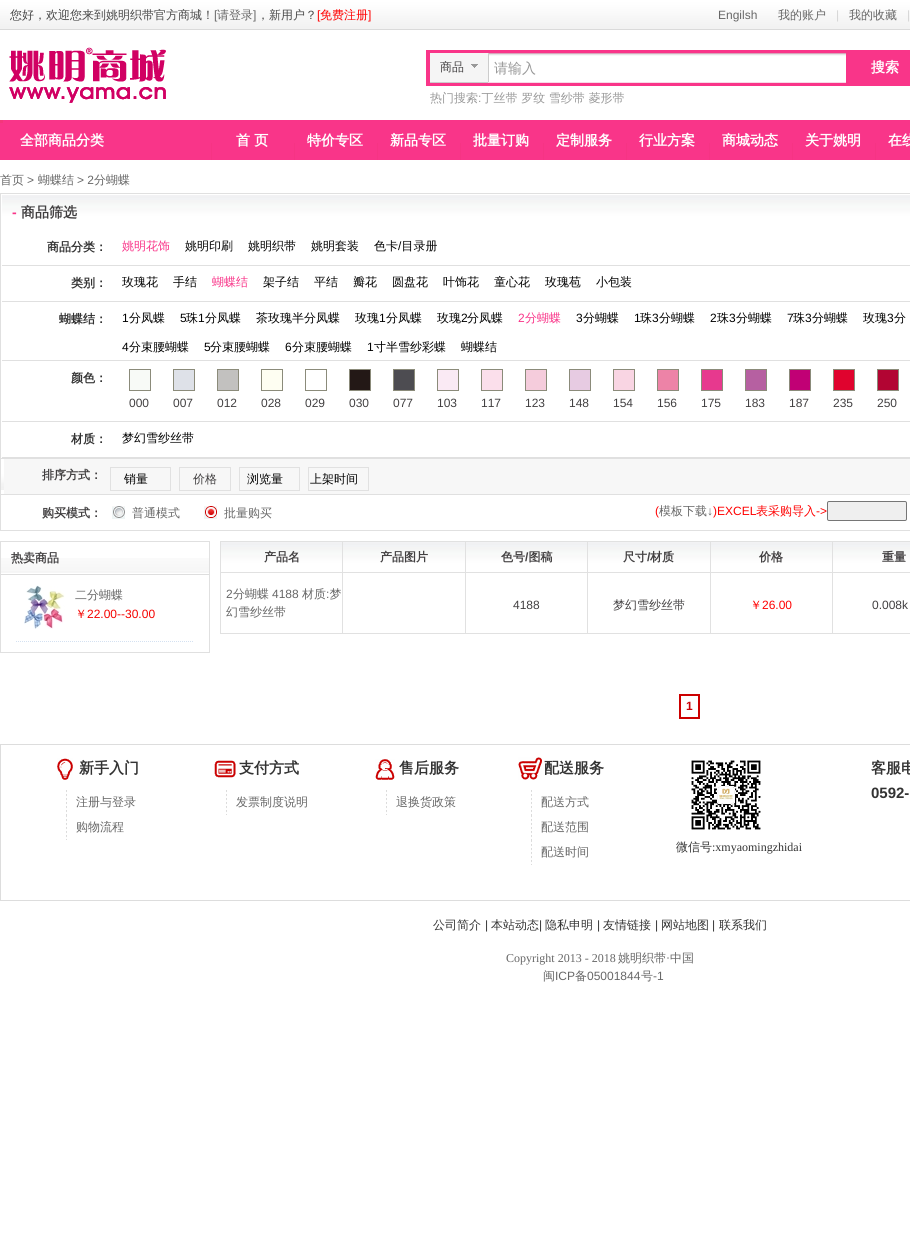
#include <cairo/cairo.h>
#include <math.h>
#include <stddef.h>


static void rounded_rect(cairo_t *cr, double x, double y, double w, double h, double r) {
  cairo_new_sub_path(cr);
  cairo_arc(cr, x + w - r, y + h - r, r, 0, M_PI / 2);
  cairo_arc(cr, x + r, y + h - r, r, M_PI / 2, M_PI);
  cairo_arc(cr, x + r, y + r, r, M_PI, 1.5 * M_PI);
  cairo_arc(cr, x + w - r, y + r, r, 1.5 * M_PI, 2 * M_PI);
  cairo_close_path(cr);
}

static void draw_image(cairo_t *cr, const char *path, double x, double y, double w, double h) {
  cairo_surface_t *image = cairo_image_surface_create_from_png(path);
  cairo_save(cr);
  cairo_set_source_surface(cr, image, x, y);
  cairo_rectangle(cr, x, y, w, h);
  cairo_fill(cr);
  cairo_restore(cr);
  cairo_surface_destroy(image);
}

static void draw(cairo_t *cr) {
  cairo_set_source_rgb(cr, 1, 1, 1);
  cairo_paint(cr);
  draw_image(cr, "images/1.png", 0, 0, 910, 30);
  draw_image(cr, "images/2.png", 9, 47, 157, 56);
  cairo_set_source_rgb(cr, 249 / 255.0, 53 / 255.0, 137 / 255.0);
  cairo_rectangle(cr, 426, 50, 4, 36);
  cairo_fill(cr);
  draw_image(cr, "images/3.png", 430, 50, 480, 36);
  cairo_set_source_rgb(cr, 204 / 255.0, 204 / 255.0, 204 / 255.0);
  cairo_rectangle(cr, 488, 53, 1, 29);
  cairo_fill(cr);
  cairo_set_source_rgb(cr, 245 / 255.0, 245 / 255.0, 245 / 255.0);
  cairo_rectangle(cr, 430, 53, 58, 29);
  cairo_fill(cr);
  cairo_set_source_rgb(cr, 204 / 255.0, 204 / 255.0, 204 / 255.0);
  cairo_rectangle(cr, 430, 82, 58, 1);
  cairo_fill(cr);
  draw_image(cr, "images/4.png", 471, 64, 7, 4);
  draw_image(cr, "images/5.png", 489, 53, 350, 30);
  cairo_set_source_rgb(cr, 249 / 255.0, 53 / 255.0, 137 / 255.0);
  cairo_rectangle(cr, 846, 53, 64, 30);
  cairo_fill(cr);
  cairo_rectangle(cr, 0, 120, 910, 40);
  cairo_fill(cr);
  cairo_set_source_rgb(cr, 244 / 255.0, 55 / 255.0, 122 / 255.0);
  cairo_rectangle(cr, 0, 120, 3, 3);
  cairo_fill(cr);
  cairo_set_source_rgb(cr, 246 / 255.0, 52 / 255.0, 132 / 255.0);
  cairo_rectangle(cr, 211, 143, 1, 17);
  cairo_fill(cr);
  cairo_rectangle(cr, 294, 143, 1, 17);
  cairo_fill(cr);
  cairo_rectangle(cr, 377, 143, 1, 17);
  cairo_fill(cr);
  cairo_rectangle(cr, 460, 143, 1, 17);
  cairo_fill(cr);
  cairo_rectangle(cr, 543, 143, 1, 17);
  cairo_fill(cr);
  cairo_rectangle(cr, 626, 143, 1, 17);
  cairo_fill(cr);
  cairo_rectangle(cr, 709, 143, 1, 17);
  cairo_fill(cr);
  cairo_rectangle(cr, 792, 143, 1, 17);
  cairo_fill(cr);
  cairo_rectangle(cr, 875, 143, 1, 17);
  cairo_fill(cr);
  cairo_rectangle(cr, 0.5, 193.5, 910, 265);
  cairo_set_source_rgb(cr, 224 / 255.0, 224 / 255.0, 224 / 255.0);
  cairo_set_line_width(cr, 1);
  cairo_stroke(cr);
  draw_image(cr, "images/6.png", 2, 195, 908, 35);
  cairo_rectangle(cr, 2, 265, 908, 1);
  cairo_fill(cr);
  cairo_rectangle(cr, 2, 301, 908, 1);
  cairo_fill(cr);
  cairo_rectangle(cr, 2, 360, 908, 1);
  cairo_fill(cr);
  cairo_rectangle(cr, 2, 421, 908, 1);
  cairo_fill(cr);
  cairo_rectangle(cr, 129.5, 369.5, 21, 21);
  cairo_set_source_rgb(cr, 139 / 255.0, 139 / 255.0, 122 / 255.0);
  cairo_stroke(cr);
  cairo_set_source_rgb(cr, 248 / 255.0, 250 / 255.0, 247 / 255.0);
  cairo_rectangle(cr, 130, 370, 20, 20);
  cairo_fill(cr);
  cairo_rectangle(cr, 173.5, 369.5, 21, 21);
  cairo_set_source_rgb(cr, 139 / 255.0, 139 / 255.0, 122 / 255.0);
  cairo_stroke(cr);
  cairo_set_source_rgb(cr, 222 / 255.0, 225 / 255.0, 232 / 255.0);
  cairo_rectangle(cr, 174, 370, 20, 20);
  cairo_fill(cr);
  cairo_rectangle(cr, 217.5, 369.5, 21, 21);
  cairo_set_source_rgb(cr, 139 / 255.0, 139 / 255.0, 122 / 255.0);
  cairo_stroke(cr);
  cairo_set_source_rgb(cr, 194 / 255.0, 193 / 255.0, 191 / 255.0);
  cairo_rectangle(cr, 218, 370, 20, 20);
  cairo_fill(cr);
  cairo_rectangle(cr, 261.5, 369.5, 21, 21);
  cairo_set_source_rgb(cr, 139 / 255.0, 139 / 255.0, 122 / 255.0);
  cairo_stroke(cr);
  cairo_set_source_rgb(cr, 254 / 255.0, 254 / 255.0, 242 / 255.0);
  cairo_rectangle(cr, 262, 370, 20, 20);
  cairo_fill(cr);
  cairo_rectangle(cr, 305.5, 369.5, 21, 21);
  cairo_set_source_rgb(cr, 139 / 255.0, 139 / 255.0, 122 / 255.0);
  cairo_stroke(cr);
  cairo_rectangle(cr, 349.5, 369.5, 21, 21);
  cairo_stroke(cr);
  cairo_set_source_rgb(cr, 35 / 255.0, 24 / 255.0, 22 / 255.0);
  cairo_rectangle(cr, 350, 370, 20, 20);
  cairo_fill(cr);
  cairo_rectangle(cr, 393.5, 369.5, 21, 21);
  cairo_set_source_rgb(cr, 139 / 255.0, 139 / 255.0, 122 / 255.0);
  cairo_stroke(cr);
  cairo_set_source_rgb(cr, 77 / 255.0, 76 / 255.0, 81 / 255.0);
  cairo_rectangle(cr, 394, 370, 20, 20);
  cairo_fill(cr);
  cairo_rectangle(cr, 437.5, 369.5, 21, 21);
  cairo_set_source_rgb(cr, 139 / 255.0, 139 / 255.0, 122 / 255.0);
  cairo_stroke(cr);
  cairo_set_source_rgb(cr, 250 / 255.0, 234 / 255.0, 244 / 255.0);
  cairo_rectangle(cr, 438, 370, 20, 20);
  cairo_fill(cr);
  cairo_rectangle(cr, 481.5, 369.5, 21, 21);
  cairo_set_source_rgb(cr, 139 / 255.0, 139 / 255.0, 122 / 255.0);
  cairo_stroke(cr);
  cairo_set_source_rgb(cr, 251 / 255.0, 223 / 255.0, 235 / 255.0);
  cairo_rectangle(cr, 482, 370, 20, 20);
  cairo_fill(cr);
  cairo_rectangle(cr, 525.5, 369.5, 21, 21);
  cairo_set_source_rgb(cr, 139 / 255.0, 139 / 255.0, 122 / 255.0);
  cairo_stroke(cr);
  cairo_set_source_rgb(cr, 245 / 255.0, 204 / 255.0, 220 / 255.0);
  cairo_rectangle(cr, 526, 370, 20, 20);
  cairo_fill(cr);
  cairo_rectangle(cr, 569.5, 369.5, 21, 21);
  cairo_set_source_rgb(cr, 139 / 255.0, 139 / 255.0, 122 / 255.0);
  cairo_stroke(cr);
  cairo_set_source_rgb(cr, 231 / 255.0, 203 / 255.0, 226 / 255.0);
  cairo_rectangle(cr, 570, 370, 20, 20);
  cairo_fill(cr);
  cairo_rectangle(cr, 613.5, 369.5, 21, 21);
  cairo_set_source_rgb(cr, 139 / 255.0, 139 / 255.0, 122 / 255.0);
  cairo_stroke(cr);
  cairo_set_source_rgb(cr, 249 / 255.0, 213 / 255.0, 227 / 255.0);
  cairo_rectangle(cr, 614, 370, 20, 20);
  cairo_fill(cr);
  cairo_rectangle(cr, 657.5, 369.5, 21, 21);
  cairo_set_source_rgb(cr, 139 / 255.0, 139 / 255.0, 122 / 255.0);
  cairo_stroke(cr);
  cairo_set_source_rgb(cr, 237 / 255.0, 131 / 255.0, 167 / 255.0);
  cairo_rectangle(cr, 658, 370, 20, 20);
  cairo_fill(cr);
  cairo_rectangle(cr, 701.5, 369.5, 21, 21);
  cairo_set_source_rgb(cr, 139 / 255.0, 139 / 255.0, 122 / 255.0);
  cairo_stroke(cr);
  cairo_set_source_rgb(cr, 231 / 255.0, 57 / 255.0, 142 / 255.0);
  cairo_rectangle(cr, 702, 370, 20, 20);
  cairo_fill(cr);
  cairo_rectangle(cr, 745.5, 369.5, 21, 21);
  cairo_set_source_rgb(cr, 139 / 255.0, 139 / 255.0, 122 / 255.0);
  cairo_stroke(cr);
  cairo_set_source_rgb(cr, 182 / 255.0, 96 / 255.0, 161 / 255.0);
  cairo_rectangle(cr, 746, 370, 20, 20);
  cairo_fill(cr);
  cairo_rectangle(cr, 789.5, 369.5, 21, 21);
  cairo_set_source_rgb(cr, 139 / 255.0, 139 / 255.0, 122 / 255.0);
  cairo_stroke(cr);
  cairo_set_source_rgb(cr, 193 / 255.0, 0, 117 / 255.0);
  cairo_rectangle(cr, 790, 370, 20, 20);
  cairo_fill(cr);
  cairo_rectangle(cr, 833.5, 369.5, 21, 21);
  cairo_set_source_rgb(cr, 139 / 255.0, 139 / 255.0, 122 / 255.0);
  cairo_stroke(cr);
  cairo_set_source_rgb(cr, 224 / 255.0, 3 / 255.0, 46 / 255.0);
  cairo_rectangle(cr, 834, 370, 20, 20);
  cairo_fill(cr);
  cairo_rectangle(cr, 877.5, 369.5, 21, 21);
  cairo_set_source_rgb(cr, 139 / 255.0, 139 / 255.0, 122 / 255.0);
  cairo_stroke(cr);
  cairo_set_source_rgb(cr, 178 / 255.0, 5 / 255.0, 51 / 255.0);
  cairo_rectangle(cr, 878, 370, 20, 20);
  cairo_fill(cr);
  cairo_set_source_rgb(cr, 224 / 255.0, 224 / 255.0, 224 / 255.0);
  cairo_rectangle(cr, 2, 457, 908, 1);
  cairo_fill(cr);
  cairo_set_source_rgb(cr, 247 / 255.0, 247 / 255.0, 247 / 255.0);
  cairo_rectangle(cr, 4, 459, 906, 35);
  cairo_fill(cr);
  draw_image(cr, "images/7.png", 1, 459, 3, 35);
  cairo_set_source_rgb(cr, 224 / 255.0, 224 / 255.0, 224 / 255.0);
  cairo_rectangle(cr, 0, 494, 910, 1);
  cairo_fill(cr);
  cairo_rectangle(cr, 0, 459, 1, 36);
  cairo_fill(cr);
  cairo_rectangle(cr, 110.5, 467.5, 60, 23);
  cairo_set_source_rgb(cr, 225 / 255.0, 225 / 255.0, 225 / 255.0);
  cairo_stroke(cr);
  cairo_rectangle(cr, 179.5, 467.5, 51, 23);
  cairo_stroke(cr);
  cairo_rectangle(cr, 239.5, 467.5, 60, 23);
  cairo_stroke(cr);
  cairo_rectangle(cr, 308.5, 467.5, 60, 23);
  cairo_stroke(cr);
  cairo_set_source_rgb(cr, 224 / 255.0, 224 / 255.0, 224 / 255.0);
  cairo_rectangle(cr, 0, 530, 910, 1);
  cairo_fill(cr);
  cairo_rectangle(cr, 0, 495, 1, 36);
  cairo_fill(cr);
  draw_image(cr, "images/8.png", 112, 506, 13, 13);
  draw_image(cr, "images/9.png", 204, 506, 13, 13);
  cairo_set_source_rgb(cr, 239 / 255.0, 239 / 255.0, 239 / 255.0);
  rounded_rect(cr, 827.5, 501.5, 79, 19, 1.5);
  cairo_fill_preserve(cr);
  cairo_set_source_rgb(cr, 118 / 255.0, 118 / 255.0, 118 / 255.0);
  cairo_stroke(cr);
  cairo_rectangle(cr, 0.5, 541.5, 209, 111);
  cairo_set_source_rgb(cr, 224 / 255.0, 224 / 255.0, 224 / 255.0);
  cairo_stroke(cr);
  draw_image(cr, "images/10.png", 1, 558, 208, 17);
  draw_image(cr, "images/11.png", 24, 585, 41, 44);
  cairo_new_path(cr);
  cairo_move_to(cr, 16, 641.5);
  cairo_line_to(cr, 194, 641.5);
  cairo_set_source_rgb(cr, 212 / 255.0, 225 / 255.0, 241 / 255.0);
  cairo_set_dash(cr, (double[]){1, 1}, 2, 0);
  cairo_stroke(cr);
  cairo_set_source_rgb(cr, 225 / 255.0, 225 / 255.0, 225 / 255.0);
  cairo_rectangle(cr, 220, 541, 690, 1);
  cairo_fill(cr);
  cairo_rectangle(cr, 220, 633, 690, 1);
  cairo_fill(cr);
  cairo_rectangle(cr, 220, 541, 1, 93);
  cairo_fill(cr);
  draw_image(cr, "images/12.png", 221, 542, 121, 30);
  draw_image(cr, "images/13.png", 343, 542, 122, 30);
  cairo_rectangle(cr, 832, 572, 78, 1);
  cairo_fill(cr);
  cairo_rectangle(cr, 832, 572, 1, 62);
  cairo_fill(cr);
  cairo_rectangle(cr, 710, 572, 123, 1);
  cairo_fill(cr);
  cairo_rectangle(cr, 710, 572, 1, 62);
  cairo_fill(cr);
  cairo_rectangle(cr, 587, 572, 124, 1);
  cairo_fill(cr);
  cairo_rectangle(cr, 587, 572, 1, 62);
  cairo_fill(cr);
  cairo_rectangle(cr, 465, 572, 123, 1);
  cairo_fill(cr);
  cairo_rectangle(cr, 465, 572, 1, 62);
  cairo_fill(cr);
  cairo_rectangle(cr, 342, 572, 124, 1);
  cairo_fill(cr);
  cairo_rectangle(cr, 342, 572, 1, 62);
  cairo_fill(cr);
  cairo_rectangle(cr, 220, 572, 123, 1);
  cairo_fill(cr);
  cairo_rectangle(cr, 342, 541, 1, 32);
  cairo_fill(cr);
  draw_image(cr, "images/12.png", 466, 542, 121, 30);
  cairo_rectangle(cr, 465, 541, 1, 32);
  cairo_fill(cr);
  draw_image(cr, "images/13.png", 588, 542, 122, 30);
  cairo_rectangle(cr, 587, 541, 1, 32);
  cairo_fill(cr);
  draw_image(cr, "images/12.png", 711, 542, 121, 30);
  cairo_rectangle(cr, 710, 541, 1, 32);
  cairo_fill(cr);
  draw_image(cr, "images/14.png", 833, 542, 77, 30);
  cairo_rectangle(cr, 832, 541, 1, 32);
  cairo_fill(cr);
  cairo_rectangle(cr, 680, 695, 19, 23);
  cairo_set_source_rgb(cr, 204 / 255.0, 0, 0);
  cairo_set_line_width(cr, 2);
  cairo_set_dash(cr, NULL, 0, 0);
  cairo_stroke(cr);
  cairo_rectangle(cr, 0.5, 744.5, 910, 156);
  cairo_set_source_rgb(cr, 221 / 255.0, 221 / 255.0, 221 / 255.0);
  cairo_set_line_width(cr, 1);
  cairo_stroke(cr);
  draw_image(cr, "images/15.png", 57, 758, 16, 22);
  draw_image(cr, "images/16.png", 66, 790, 1, 25);
  draw_image(cr, "images/16.png", 66, 815, 1, 25);
  draw_image(cr, "images/17.png", 214, 760, 22, 18);
  draw_image(cr, "images/16.png", 226, 790, 1, 25);
  draw_image(cr, "images/18.png", 375, 759, 20, 21);
  draw_image(cr, "images/16.png", 386, 790, 1, 25);
  draw_image(cr, "images/19.png", 518, 757, 24, 23);
  draw_image(cr, "images/16.png", 531, 790, 1, 25);
  draw_image(cr, "images/16.png", 531, 815, 1, 25);
  draw_image(cr, "images/16.png", 531, 840, 1, 25);
  draw_image(cr, "images/20.png", 691, 760, 70, 70);
  cairo_select_font_face(cr, "WenQuanYi Zen Hei Medium", CAIRO_FONT_SLANT_NORMAL, CAIRO_FONT_WEIGHT_NORMAL);
  cairo_set_font_size(cr, 12);
  cairo_set_source_rgb(cr, 72 / 255.0, 72 / 255.0, 72 / 255.0);
  cairo_move_to(cr, 10, 19);
  cairo_show_text(cr, "您好，欢迎您来到姚明织带官方商城！");
  cairo_select_font_face(cr, "Liberation Sans", CAIRO_FONT_SLANT_NORMAL, CAIRO_FONT_WEIGHT_NORMAL);
  cairo_set_source_rgb(cr, 103 / 255.0, 103 / 255.0, 103 / 255.0);
  cairo_move_to(cr, 214, 19);
  cairo_show_text(cr, "[");
  cairo_select_font_face(cr, "WenQuanYi Zen Hei Medium", CAIRO_FONT_SLANT_NORMAL, CAIRO_FONT_WEIGHT_NORMAL);
  cairo_move_to(cr, 217, 19);
  cairo_show_text(cr, "请登录");
  cairo_select_font_face(cr, "Liberation Sans", CAIRO_FONT_SLANT_NORMAL, CAIRO_FONT_WEIGHT_NORMAL);
  cairo_move_to(cr, 253, 19);
  cairo_show_text(cr, "]");
  cairo_select_font_face(cr, "WenQuanYi Zen Hei Medium", CAIRO_FONT_SLANT_NORMAL, CAIRO_FONT_WEIGHT_NORMAL);
  cairo_set_source_rgb(cr, 72 / 255.0, 72 / 255.0, 72 / 255.0);
  cairo_move_to(cr, 257, 19);
  cairo_show_text(cr, "，新用户？");
  cairo_select_font_face(cr, "Liberation Sans", CAIRO_FONT_SLANT_NORMAL, CAIRO_FONT_WEIGHT_NORMAL);
  cairo_set_source_rgb(cr, 1, 0, 0);
  cairo_move_to(cr, 317, 19);
  cairo_show_text(cr, "[");
  cairo_select_font_face(cr, "WenQuanYi Zen Hei Medium", CAIRO_FONT_SLANT_NORMAL, CAIRO_FONT_WEIGHT_NORMAL);
  cairo_move_to(cr, 320, 19);
  cairo_show_text(cr, "免费注册");
  cairo_select_font_face(cr, "Liberation Sans", CAIRO_FONT_SLANT_NORMAL, CAIRO_FONT_WEIGHT_NORMAL);
  cairo_move_to(cr, 368, 19);
  cairo_show_text(cr, "]");
  cairo_set_source_rgb(cr, 103 / 255.0, 103 / 255.0, 103 / 255.0);
  cairo_move_to(cr, 718, 19);
  cairo_show_text(cr, "Engilsh");
  cairo_select_font_face(cr, "WenQuanYi Zen Hei Medium", CAIRO_FONT_SLANT_NORMAL, CAIRO_FONT_WEIGHT_NORMAL);
  cairo_move_to(cr, 778, 19);
  cairo_show_text(cr, "我的账户");
  cairo_select_font_face(cr, "Liberation Sans", CAIRO_FONT_SLANT_NORMAL, CAIRO_FONT_WEIGHT_NORMAL);
  cairo_set_source_rgb(cr, 213 / 255.0, 213 / 255.0, 213 / 255.0);
  cairo_move_to(cr, 836, 19);
  cairo_show_text(cr, "|");
  cairo_select_font_face(cr, "WenQuanYi Zen Hei Medium", CAIRO_FONT_SLANT_NORMAL, CAIRO_FONT_WEIGHT_NORMAL);
  cairo_set_source_rgb(cr, 103 / 255.0, 103 / 255.0, 103 / 255.0);
  cairo_move_to(cr, 849, 19);
  cairo_show_text(cr, "我的收藏");
  cairo_select_font_face(cr, "Liberation Sans", CAIRO_FONT_SLANT_NORMAL, CAIRO_FONT_WEIGHT_NORMAL);
  cairo_set_source_rgb(cr, 213 / 255.0, 213 / 255.0, 213 / 255.0);
  cairo_move_to(cr, 907, 19);
  cairo_show_text(cr, "|");
  cairo_select_font_face(cr, "WenQuanYi Zen Hei Medium", CAIRO_FONT_SLANT_NORMAL, CAIRO_FONT_WEIGHT_NORMAL);
  cairo_set_source_rgb(cr, 66 / 255.0, 64 / 255.0, 65 / 255.0);
  cairo_move_to(cr, 440, 71);
  cairo_show_text(cr, "商品");
  cairo_set_font_size(cr, 14);
  cairo_set_source_rgb(cr, 153 / 255.0, 153 / 255.0, 153 / 255.0);
  cairo_move_to(cr, 494, 73);
  cairo_show_text(cr, "请输入");
  cairo_select_font_face(cr, "WenQuanYi Zen Hei", CAIRO_FONT_SLANT_NORMAL, CAIRO_FONT_WEIGHT_BOLD);
  cairo_set_source_rgb(cr, 1, 1, 1);
  cairo_move_to(cr, 871, 72);
  cairo_show_text(cr, "搜索");
  cairo_select_font_face(cr, "WenQuanYi Zen Hei Medium", CAIRO_FONT_SLANT_NORMAL, CAIRO_FONT_WEIGHT_NORMAL);
  cairo_set_font_size(cr, 12);
  cairo_set_source_rgb(cr, 153 / 255.0, 153 / 255.0, 153 / 255.0);
  cairo_move_to(cr, 430, 102);
  cairo_show_text(cr, "热门搜索 丁丝带 罗纹 雪纱带 菱形带");
  cairo_select_font_face(cr, "Liberation Sans", CAIRO_FONT_SLANT_NORMAL, CAIRO_FONT_WEIGHT_NORMAL);
  cairo_move_to(cr, 478, 102);
  cairo_show_text(cr, ":");
  cairo_select_font_face(cr, "WenQuanYi Zen Hei", CAIRO_FONT_SLANT_NORMAL, CAIRO_FONT_WEIGHT_BOLD);
  cairo_set_font_size(cr, 14);
  cairo_set_source_rgb(cr, 1, 1, 1);
  cairo_move_to(cr, 20, 145);
  cairo_show_text(cr, "全部商品分类");
  cairo_move_to(cr, 236, 145);
  cairo_show_text(cr, "首 页");
  cairo_move_to(cr, 307, 145);
  cairo_show_text(cr, "特价专区");
  cairo_move_to(cr, 390, 145);
  cairo_show_text(cr, "新品专区");
  cairo_move_to(cr, 473, 145);
  cairo_show_text(cr, "批量订购");
  cairo_move_to(cr, 556, 145);
  cairo_show_text(cr, "定制服务");
  cairo_move_to(cr, 639, 145);
  cairo_show_text(cr, "行业方案");
  cairo_move_to(cr, 722, 145);
  cairo_show_text(cr, "商城动态");
  cairo_move_to(cr, 805, 145);
  cairo_show_text(cr, "关于姚明");
  cairo_move_to(cr, 888, 145);
  cairo_show_text(cr, "在线");
  cairo_select_font_face(cr, "WenQuanYi Zen Hei Medium", CAIRO_FONT_SLANT_NORMAL, CAIRO_FONT_WEIGHT_NORMAL);
  cairo_set_font_size(cr, 12);
  cairo_set_source_rgb(cr, 103 / 255.0, 103 / 255.0, 103 / 255.0);
  cairo_move_to(cr, 0, 184);
  cairo_show_text(cr, "首页");
  cairo_select_font_face(cr, "Liberation Sans", CAIRO_FONT_SLANT_NORMAL, CAIRO_FONT_WEIGHT_NORMAL);
  cairo_move_to(cr, 27, 184);
  cairo_show_text(cr, ">");
  cairo_select_font_face(cr, "WenQuanYi Zen Hei Medium", CAIRO_FONT_SLANT_NORMAL, CAIRO_FONT_WEIGHT_NORMAL);
  cairo_move_to(cr, 38, 184);
  cairo_show_text(cr, "蝴蝶结");
  cairo_select_font_face(cr, "Liberation Sans", CAIRO_FONT_SLANT_NORMAL, CAIRO_FONT_WEIGHT_NORMAL);
  cairo_move_to(cr, 77, 184);
  cairo_show_text(cr, "> 2");
  cairo_select_font_face(cr, "WenQuanYi Zen Hei Medium", CAIRO_FONT_SLANT_NORMAL, CAIRO_FONT_WEIGHT_NORMAL);
  cairo_move_to(cr, 94, 184);
  cairo_show_text(cr, "分蝴蝶");
  cairo_select_font_face(cr, "Liberation Sans", CAIRO_FONT_SLANT_NORMAL, CAIRO_FONT_WEIGHT_BOLD);
  cairo_set_font_size(cr, 14);
  cairo_set_source_rgb(cr, 249 / 255.0, 53 / 255.0, 137 / 255.0);
  cairo_move_to(cr, 12, 217);
  cairo_show_text(cr, "-");
  cairo_select_font_face(cr, "WenQuanYi Zen Hei", CAIRO_FONT_SLANT_NORMAL, CAIRO_FONT_WEIGHT_BOLD);
  cairo_set_source_rgb(cr, 66 / 255.0, 64 / 255.0, 65 / 255.0);
  cairo_move_to(cr, 21, 217);
  cairo_show_text(cr, "商品筛选");
  cairo_set_font_size(cr, 12);
  cairo_set_source_rgb(cr, 51 / 255.0, 51 / 255.0, 51 / 255.0);
  cairo_move_to(cr, 47, 251);
  cairo_show_text(cr, "商品分类：");
  cairo_select_font_face(cr, "WenQuanYi Zen Hei Medium", CAIRO_FONT_SLANT_NORMAL, CAIRO_FONT_WEIGHT_NORMAL);
  cairo_set_source_rgb(cr, 249 / 255.0, 53 / 255.0, 137 / 255.0);
  cairo_move_to(cr, 122, 250);
  cairo_show_text(cr, "姚明花饰");
  cairo_set_source_rgb(cr, 0, 0, 0);
  cairo_move_to(cr, 185, 250);
  cairo_show_text(cr, "姚明印刷");
  cairo_move_to(cr, 248, 250);
  cairo_show_text(cr, "姚明织带");
  cairo_move_to(cr, 311, 250);
  cairo_show_text(cr, "姚明套装");
  cairo_move_to(cr, 374, 250);
  cairo_show_text(cr, "色卡 目录册");
  cairo_select_font_face(cr, "Liberation Sans", CAIRO_FONT_SLANT_NORMAL, CAIRO_FONT_WEIGHT_NORMAL);
  cairo_move_to(cr, 398, 250);
  cairo_show_text(cr, "/");
  cairo_select_font_face(cr, "WenQuanYi Zen Hei", CAIRO_FONT_SLANT_NORMAL, CAIRO_FONT_WEIGHT_BOLD);
  cairo_set_source_rgb(cr, 51 / 255.0, 51 / 255.0, 51 / 255.0);
  cairo_move_to(cr, 71, 287);
  cairo_show_text(cr, "类别：");
  cairo_select_font_face(cr, "WenQuanYi Zen Hei Medium", CAIRO_FONT_SLANT_NORMAL, CAIRO_FONT_WEIGHT_NORMAL);
  cairo_set_source_rgb(cr, 0, 0, 0);
  cairo_move_to(cr, 122, 286);
  cairo_show_text(cr, "玫瑰花");
  cairo_move_to(cr, 173, 286);
  cairo_show_text(cr, "手结");
  cairo_set_source_rgb(cr, 249 / 255.0, 53 / 255.0, 137 / 255.0);
  cairo_move_to(cr, 212, 286);
  cairo_show_text(cr, "蝴蝶结");
  cairo_set_source_rgb(cr, 0, 0, 0);
  cairo_move_to(cr, 263, 286);
  cairo_show_text(cr, "架子结");
  cairo_move_to(cr, 314, 286);
  cairo_show_text(cr, "平结");
  cairo_move_to(cr, 353, 286);
  cairo_show_text(cr, "瓣花");
  cairo_move_to(cr, 392, 286);
  cairo_show_text(cr, "圆盘花");
  cairo_move_to(cr, 443, 286);
  cairo_show_text(cr, "叶饰花");
  cairo_move_to(cr, 494, 286);
  cairo_show_text(cr, "童心花");
  cairo_move_to(cr, 545, 286);
  cairo_show_text(cr, "玫瑰苞");
  cairo_move_to(cr, 596, 286);
  cairo_show_text(cr, "小包装");
  cairo_select_font_face(cr, "WenQuanYi Zen Hei", CAIRO_FONT_SLANT_NORMAL, CAIRO_FONT_WEIGHT_BOLD);
  cairo_set_source_rgb(cr, 51 / 255.0, 51 / 255.0, 51 / 255.0);
  cairo_move_to(cr, 59, 323);
  cairo_show_text(cr, "蝴蝶结：");
  cairo_select_font_face(cr, "Liberation Sans", CAIRO_FONT_SLANT_NORMAL, CAIRO_FONT_WEIGHT_NORMAL);
  cairo_set_source_rgb(cr, 0, 0, 0);
  cairo_move_to(cr, 122, 322);
  cairo_show_text(cr, "1");
  cairo_select_font_face(cr, "WenQuanYi Zen Hei Medium", CAIRO_FONT_SLANT_NORMAL, CAIRO_FONT_WEIGHT_NORMAL);
  cairo_move_to(cr, 129, 322);
  cairo_show_text(cr, "分凤蝶");
  cairo_select_font_face(cr, "Liberation Sans", CAIRO_FONT_SLANT_NORMAL, CAIRO_FONT_WEIGHT_NORMAL);
  cairo_move_to(cr, 180, 322);
  cairo_show_text(cr, "5");
  cairo_select_font_face(cr, "WenQuanYi Zen Hei Medium", CAIRO_FONT_SLANT_NORMAL, CAIRO_FONT_WEIGHT_NORMAL);
  cairo_move_to(cr, 186, 322);
  cairo_show_text(cr, "珠");
  cairo_select_font_face(cr, "Liberation Sans", CAIRO_FONT_SLANT_NORMAL, CAIRO_FONT_WEIGHT_NORMAL);
  cairo_move_to(cr, 198, 322);
  cairo_show_text(cr, "1");
  cairo_select_font_face(cr, "WenQuanYi Zen Hei Medium", CAIRO_FONT_SLANT_NORMAL, CAIRO_FONT_WEIGHT_NORMAL);
  cairo_move_to(cr, 205, 322);
  cairo_show_text(cr, "分凤蝶");
  cairo_move_to(cr, 256, 322);
  cairo_show_text(cr, "茶玫瑰半分凤蝶");
  cairo_move_to(cr, 355, 322);
  cairo_show_text(cr, "玫瑰");
  cairo_select_font_face(cr, "Liberation Sans", CAIRO_FONT_SLANT_NORMAL, CAIRO_FONT_WEIGHT_NORMAL);
  cairo_move_to(cr, 379, 322);
  cairo_show_text(cr, "1");
  cairo_select_font_face(cr, "WenQuanYi Zen Hei Medium", CAIRO_FONT_SLANT_NORMAL, CAIRO_FONT_WEIGHT_NORMAL);
  cairo_move_to(cr, 386, 322);
  cairo_show_text(cr, "分凤蝶");
  cairo_move_to(cr, 437, 322);
  cairo_show_text(cr, "玫瑰");
  cairo_select_font_face(cr, "Liberation Sans", CAIRO_FONT_SLANT_NORMAL, CAIRO_FONT_WEIGHT_NORMAL);
  cairo_move_to(cr, 461, 322);
  cairo_show_text(cr, "2");
  cairo_select_font_face(cr, "WenQuanYi Zen Hei Medium", CAIRO_FONT_SLANT_NORMAL, CAIRO_FONT_WEIGHT_NORMAL);
  cairo_move_to(cr, 467, 322);
  cairo_show_text(cr, "分凤蝶");
  cairo_select_font_face(cr, "Liberation Sans", CAIRO_FONT_SLANT_NORMAL, CAIRO_FONT_WEIGHT_NORMAL);
  cairo_set_source_rgb(cr, 249 / 255.0, 53 / 255.0, 137 / 255.0);
  cairo_move_to(cr, 518, 322);
  cairo_show_text(cr, "2");
  cairo_select_font_face(cr, "WenQuanYi Zen Hei Medium", CAIRO_FONT_SLANT_NORMAL, CAIRO_FONT_WEIGHT_NORMAL);
  cairo_move_to(cr, 525, 322);
  cairo_show_text(cr, "分蝴蝶");
  cairo_select_font_face(cr, "Liberation Sans", CAIRO_FONT_SLANT_NORMAL, CAIRO_FONT_WEIGHT_NORMAL);
  cairo_set_source_rgb(cr, 0, 0, 0);
  cairo_move_to(cr, 576, 322);
  cairo_show_text(cr, "3");
  cairo_select_font_face(cr, "WenQuanYi Zen Hei Medium", CAIRO_FONT_SLANT_NORMAL, CAIRO_FONT_WEIGHT_NORMAL);
  cairo_move_to(cr, 583, 322);
  cairo_show_text(cr, "分蝴蝶");
  cairo_select_font_face(cr, "Liberation Sans", CAIRO_FONT_SLANT_NORMAL, CAIRO_FONT_WEIGHT_NORMAL);
  cairo_move_to(cr, 634, 322);
  cairo_show_text(cr, "1");
  cairo_select_font_face(cr, "WenQuanYi Zen Hei Medium", CAIRO_FONT_SLANT_NORMAL, CAIRO_FONT_WEIGHT_NORMAL);
  cairo_move_to(cr, 640, 322);
  cairo_show_text(cr, "珠");
  cairo_select_font_face(cr, "Liberation Sans", CAIRO_FONT_SLANT_NORMAL, CAIRO_FONT_WEIGHT_NORMAL);
  cairo_move_to(cr, 652, 322);
  cairo_show_text(cr, "3");
  cairo_select_font_face(cr, "WenQuanYi Zen Hei Medium", CAIRO_FONT_SLANT_NORMAL, CAIRO_FONT_WEIGHT_NORMAL);
  cairo_move_to(cr, 659, 322);
  cairo_show_text(cr, "分蝴蝶");
  cairo_select_font_face(cr, "Liberation Sans", CAIRO_FONT_SLANT_NORMAL, CAIRO_FONT_WEIGHT_NORMAL);
  cairo_move_to(cr, 710, 322);
  cairo_show_text(cr, "2");
  cairo_select_font_face(cr, "WenQuanYi Zen Hei Medium", CAIRO_FONT_SLANT_NORMAL, CAIRO_FONT_WEIGHT_NORMAL);
  cairo_move_to(cr, 717, 322);
  cairo_show_text(cr, "珠");
  cairo_select_font_face(cr, "Liberation Sans", CAIRO_FONT_SLANT_NORMAL, CAIRO_FONT_WEIGHT_NORMAL);
  cairo_move_to(cr, 729, 322);
  cairo_show_text(cr, "3");
  cairo_select_font_face(cr, "WenQuanYi Zen Hei Medium", CAIRO_FONT_SLANT_NORMAL, CAIRO_FONT_WEIGHT_NORMAL);
  cairo_move_to(cr, 736, 322);
  cairo_show_text(cr, "分蝴蝶");
  cairo_select_font_face(cr, "Liberation Sans", CAIRO_FONT_SLANT_NORMAL, CAIRO_FONT_WEIGHT_NORMAL);
  cairo_move_to(cr, 787, 322);
  cairo_show_text(cr, "7");
  cairo_select_font_face(cr, "WenQuanYi Zen Hei Medium", CAIRO_FONT_SLANT_NORMAL, CAIRO_FONT_WEIGHT_NORMAL);
  cairo_move_to(cr, 793, 322);
  cairo_show_text(cr, "珠");
  cairo_select_font_face(cr, "Liberation Sans", CAIRO_FONT_SLANT_NORMAL, CAIRO_FONT_WEIGHT_NORMAL);
  cairo_move_to(cr, 805, 322);
  cairo_show_text(cr, "3");
  cairo_select_font_face(cr, "WenQuanYi Zen Hei Medium", CAIRO_FONT_SLANT_NORMAL, CAIRO_FONT_WEIGHT_NORMAL);
  cairo_move_to(cr, 812, 322);
  cairo_show_text(cr, "分蝴蝶");
  cairo_move_to(cr, 863, 322);
  cairo_show_text(cr, "玫瑰");
  cairo_select_font_face(cr, "Liberation Sans", CAIRO_FONT_SLANT_NORMAL, CAIRO_FONT_WEIGHT_NORMAL);
  cairo_move_to(cr, 887, 322);
  cairo_show_text(cr, "3");
  cairo_select_font_face(cr, "WenQuanYi Zen Hei Medium", CAIRO_FONT_SLANT_NORMAL, CAIRO_FONT_WEIGHT_NORMAL);
  cairo_move_to(cr, 894, 322);
  cairo_show_text(cr, "分");
  cairo_select_font_face(cr, "Liberation Sans", CAIRO_FONT_SLANT_NORMAL, CAIRO_FONT_WEIGHT_NORMAL);
  cairo_move_to(cr, 122, 351);
  cairo_show_text(cr, "4");
  cairo_select_font_face(cr, "WenQuanYi Zen Hei Medium", CAIRO_FONT_SLANT_NORMAL, CAIRO_FONT_WEIGHT_NORMAL);
  cairo_move_to(cr, 129, 351);
  cairo_show_text(cr, "分束腰蝴蝶");
  cairo_select_font_face(cr, "Liberation Sans", CAIRO_FONT_SLANT_NORMAL, CAIRO_FONT_WEIGHT_NORMAL);
  cairo_move_to(cr, 204, 351);
  cairo_show_text(cr, "5");
  cairo_select_font_face(cr, "WenQuanYi Zen Hei Medium", CAIRO_FONT_SLANT_NORMAL, CAIRO_FONT_WEIGHT_NORMAL);
  cairo_move_to(cr, 210, 351);
  cairo_show_text(cr, "分束腰蝴蝶");
  cairo_select_font_face(cr, "Liberation Sans", CAIRO_FONT_SLANT_NORMAL, CAIRO_FONT_WEIGHT_NORMAL);
  cairo_move_to(cr, 285, 351);
  cairo_show_text(cr, "6");
  cairo_select_font_face(cr, "WenQuanYi Zen Hei Medium", CAIRO_FONT_SLANT_NORMAL, CAIRO_FONT_WEIGHT_NORMAL);
  cairo_move_to(cr, 292, 351);
  cairo_show_text(cr, "分束腰蝴蝶");
  cairo_select_font_face(cr, "Liberation Sans", CAIRO_FONT_SLANT_NORMAL, CAIRO_FONT_WEIGHT_NORMAL);
  cairo_move_to(cr, 367, 351);
  cairo_show_text(cr, "1");
  cairo_select_font_face(cr, "WenQuanYi Zen Hei Medium", CAIRO_FONT_SLANT_NORMAL, CAIRO_FONT_WEIGHT_NORMAL);
  cairo_move_to(cr, 374, 351);
  cairo_show_text(cr, "寸半雪纱彩蝶");
  cairo_move_to(cr, 461, 351);
  cairo_show_text(cr, "蝴蝶结");
  cairo_select_font_face(cr, "WenQuanYi Zen Hei", CAIRO_FONT_SLANT_NORMAL, CAIRO_FONT_WEIGHT_BOLD);
  cairo_set_source_rgb(cr, 51 / 255.0, 51 / 255.0, 51 / 255.0);
  cairo_move_to(cr, 71, 382);
  cairo_show_text(cr, "颜色：");
  cairo_select_font_face(cr, "Liberation Sans", CAIRO_FONT_SLANT_NORMAL, CAIRO_FONT_WEIGHT_NORMAL);
  cairo_set_source_rgb(cr, 66 / 255.0, 64 / 255.0, 65 / 255.0);
  cairo_move_to(cr, 129, 407);
  cairo_show_text(cr, "000");
  cairo_move_to(cr, 173, 407);
  cairo_show_text(cr, "007");
  cairo_move_to(cr, 217, 407);
  cairo_show_text(cr, "012");
  cairo_move_to(cr, 261, 407);
  cairo_show_text(cr, "028");
  cairo_move_to(cr, 305, 407);
  cairo_show_text(cr, "029");
  cairo_move_to(cr, 349, 407);
  cairo_show_text(cr, "030");
  cairo_move_to(cr, 393, 407);
  cairo_show_text(cr, "077");
  cairo_move_to(cr, 437, 407);
  cairo_show_text(cr, "103");
  cairo_move_to(cr, 481, 407);
  cairo_show_text(cr, "117");
  cairo_move_to(cr, 525, 407);
  cairo_show_text(cr, "123");
  cairo_move_to(cr, 569, 407);
  cairo_show_text(cr, "148");
  cairo_move_to(cr, 613, 407);
  cairo_show_text(cr, "154");
  cairo_move_to(cr, 657, 407);
  cairo_show_text(cr, "156");
  cairo_move_to(cr, 701, 407);
  cairo_show_text(cr, "175");
  cairo_move_to(cr, 745, 407);
  cairo_show_text(cr, "183");
  cairo_move_to(cr, 789, 407);
  cairo_show_text(cr, "187");
  cairo_move_to(cr, 833, 407);
  cairo_show_text(cr, "235");
  cairo_move_to(cr, 877, 407);
  cairo_show_text(cr, "250");
  cairo_select_font_face(cr, "WenQuanYi Zen Hei", CAIRO_FONT_SLANT_NORMAL, CAIRO_FONT_WEIGHT_BOLD);
  cairo_set_source_rgb(cr, 51 / 255.0, 51 / 255.0, 51 / 255.0);
  cairo_move_to(cr, 71, 443);
  cairo_show_text(cr, "材质：");
  cairo_select_font_face(cr, "WenQuanYi Zen Hei Medium", CAIRO_FONT_SLANT_NORMAL, CAIRO_FONT_WEIGHT_NORMAL);
  cairo_set_source_rgb(cr, 0, 0, 0);
  cairo_move_to(cr, 122, 442);
  cairo_show_text(cr, "梦幻雪纱丝带");
  cairo_select_font_face(cr, "WenQuanYi Zen Hei", CAIRO_FONT_SLANT_NORMAL, CAIRO_FONT_WEIGHT_BOLD);
  cairo_set_source_rgb(cr, 66 / 255.0, 64 / 255.0, 65 / 255.0);
  cairo_move_to(cr, 42, 479);
  cairo_show_text(cr, "排序方式：");
  cairo_select_font_face(cr, "WenQuanYi Zen Hei Medium", CAIRO_FONT_SLANT_NORMAL, CAIRO_FONT_WEIGHT_NORMAL);
  cairo_set_source_rgb(cr, 0, 0, 0);
  cairo_move_to(cr, 124, 483);
  cairo_show_text(cr, "销量");
  cairo_set_source_rgb(cr, 66 / 255.0, 64 / 255.0, 65 / 255.0);
  cairo_move_to(cr, 193, 483);
  cairo_show_text(cr, "价格");
  cairo_set_source_rgb(cr, 0, 0, 0);
  cairo_move_to(cr, 247, 483);
  cairo_show_text(cr, "浏览量");
  cairo_move_to(cr, 310, 483);
  cairo_show_text(cr, "上架时间");
  cairo_select_font_face(cr, "WenQuanYi Zen Hei", CAIRO_FONT_SLANT_NORMAL, CAIRO_FONT_WEIGHT_BOLD);
  cairo_set_source_rgb(cr, 66 / 255.0, 64 / 255.0, 65 / 255.0);
  cairo_move_to(cr, 42, 517);
  cairo_show_text(cr, "购买模式：");
  cairo_select_font_face(cr, "WenQuanYi Zen Hei Medium", CAIRO_FONT_SLANT_NORMAL, CAIRO_FONT_WEIGHT_NORMAL);
  cairo_set_source_rgb(cr, 103 / 255.0, 103 / 255.0, 103 / 255.0);
  cairo_move_to(cr, 132, 517);
  cairo_show_text(cr, "普通模式");
  cairo_move_to(cr, 224, 517);
  cairo_show_text(cr, "批量购买");
  cairo_select_font_face(cr, "Liberation Sans", CAIRO_FONT_SLANT_NORMAL, CAIRO_FONT_WEIGHT_NORMAL);
  cairo_set_source_rgb(cr, 1, 0, 0);
  cairo_move_to(cr, 655, 515);
  cairo_show_text(cr, "(");
  cairo_select_font_face(cr, "WenQuanYi Zen Hei Medium", CAIRO_FONT_SLANT_NORMAL, CAIRO_FONT_WEIGHT_NORMAL);
  cairo_set_source_rgb(cr, 103 / 255.0, 103 / 255.0, 103 / 255.0);
  cairo_move_to(cr, 659, 515);
  cairo_show_text(cr, "模板下载");
  cairo_select_font_face(cr, "Liberation Sans", CAIRO_FONT_SLANT_NORMAL, CAIRO_FONT_WEIGHT_NORMAL);
  cairo_move_to(cr, 707, 515);
  cairo_show_text(cr, "↓");
  cairo_set_source_rgb(cr, 1, 0, 0);
  cairo_move_to(cr, 713, 515);
  cairo_show_text(cr, ")EXCEL");
  cairo_select_font_face(cr, "WenQuanYi Zen Hei Medium", CAIRO_FONT_SLANT_NORMAL, CAIRO_FONT_WEIGHT_NORMAL);
  cairo_move_to(cr, 756, 515);
  cairo_show_text(cr, "表采购导入");
  cairo_select_font_face(cr, "Liberation Sans", CAIRO_FONT_SLANT_NORMAL, CAIRO_FONT_WEIGHT_NORMAL);
  cairo_move_to(cr, 816, 515);
  cairo_show_text(cr, "->");
  cairo_select_font_face(cr, "WenQuanYi Zen Hei", CAIRO_FONT_SLANT_NORMAL, CAIRO_FONT_WEIGHT_BOLD);
  cairo_set_source_rgb(cr, 66 / 255.0, 64 / 255.0, 65 / 255.0);
  cairo_move_to(cr, 11, 562);
  cairo_show_text(cr, "热卖商品");
  cairo_select_font_face(cr, "WenQuanYi Zen Hei Medium", CAIRO_FONT_SLANT_NORMAL, CAIRO_FONT_WEIGHT_NORMAL);
  cairo_set_source_rgb(cr, 103 / 255.0, 103 / 255.0, 103 / 255.0);
  cairo_move_to(cr, 75, 599);
  cairo_show_text(cr, "二分蝴蝶");
  cairo_set_source_rgb(cr, 245 / 255.0, 2 / 255.0, 0);
  cairo_move_to(cr, 75, 618);
  cairo_show_text(cr, "￥");
  cairo_select_font_face(cr, "Liberation Sans", CAIRO_FONT_SLANT_NORMAL, CAIRO_FONT_WEIGHT_NORMAL);
  cairo_move_to(cr, 87, 618);
  cairo_show_text(cr, "22.00--30.00");
  cairo_select_font_face(cr, "WenQuanYi Zen Hei", CAIRO_FONT_SLANT_NORMAL, CAIRO_FONT_WEIGHT_BOLD);
  cairo_set_source_rgb(cr, 66 / 255.0, 64 / 255.0, 65 / 255.0);
  cairo_move_to(cr, 264, 561);
  cairo_show_text(cr, "产品名");
  cairo_move_to(cr, 380, 561);
  cairo_show_text(cr, "产品图片");
  cairo_move_to(cr, 501, 561);
  cairo_show_text(cr, "色号 图稿");
  cairo_select_font_face(cr, "Liberation Sans", CAIRO_FONT_SLANT_NORMAL, CAIRO_FONT_WEIGHT_BOLD);
  cairo_move_to(cr, 525, 561);
  cairo_show_text(cr, "/");
  cairo_select_font_face(cr, "WenQuanYi Zen Hei", CAIRO_FONT_SLANT_NORMAL, CAIRO_FONT_WEIGHT_BOLD);
  cairo_move_to(cr, 623, 561);
  cairo_show_text(cr, "尺寸");
  cairo_select_font_face(cr, "Liberation Sans", CAIRO_FONT_SLANT_NORMAL, CAIRO_FONT_WEIGHT_BOLD);
  cairo_move_to(cr, 647, 561);
  cairo_show_text(cr, "/");
  cairo_select_font_face(cr, "WenQuanYi Zen Hei", CAIRO_FONT_SLANT_NORMAL, CAIRO_FONT_WEIGHT_BOLD);
  cairo_move_to(cr, 650, 561);
  cairo_show_text(cr, "材质");
  cairo_move_to(cr, 759, 561);
  cairo_show_text(cr, "价格");
  cairo_move_to(cr, 882, 561);
  cairo_show_text(cr, "重量");
  cairo_select_font_face(cr, "Liberation Sans", CAIRO_FONT_SLANT_NORMAL, CAIRO_FONT_WEIGHT_NORMAL);
  cairo_set_source_rgb(cr, 103 / 255.0, 103 / 255.0, 103 / 255.0);
  cairo_move_to(cr, 226, 598);
  cairo_show_text(cr, "2");
  cairo_select_font_face(cr, "WenQuanYi Zen Hei Medium", CAIRO_FONT_SLANT_NORMAL, CAIRO_FONT_WEIGHT_NORMAL);
  cairo_move_to(cr, 233, 598);
  cairo_show_text(cr, "分蝴蝶");
  cairo_select_font_face(cr, "Liberation Sans", CAIRO_FONT_SLANT_NORMAL, CAIRO_FONT_WEIGHT_NORMAL);
  cairo_move_to(cr, 272, 598);
  cairo_show_text(cr, "4188");
  cairo_select_font_face(cr, "WenQuanYi Zen Hei Medium", CAIRO_FONT_SLANT_NORMAL, CAIRO_FONT_WEIGHT_NORMAL);
  cairo_move_to(cr, 302, 598);
  cairo_show_text(cr, "材质 梦");
  cairo_select_font_face(cr, "Liberation Sans", CAIRO_FONT_SLANT_NORMAL, CAIRO_FONT_WEIGHT_NORMAL);
  cairo_move_to(cr, 326, 598);
  cairo_show_text(cr, ":");
  cairo_select_font_face(cr, "WenQuanYi Zen Hei Medium", CAIRO_FONT_SLANT_NORMAL, CAIRO_FONT_WEIGHT_NORMAL);
  cairo_move_to(cr, 226, 616);
  cairo_show_text(cr, "幻雪纱丝带");
  cairo_select_font_face(cr, "Liberation Sans", CAIRO_FONT_SLANT_NORMAL, CAIRO_FONT_WEIGHT_NORMAL);
  cairo_set_source_rgb(cr, 66 / 255.0, 64 / 255.0, 65 / 255.0);
  cairo_move_to(cr, 513, 609);
  cairo_show_text(cr, "4188");
  cairo_select_font_face(cr, "WenQuanYi Zen Hei Medium", CAIRO_FONT_SLANT_NORMAL, CAIRO_FONT_WEIGHT_NORMAL);
  cairo_move_to(cr, 613, 609);
  cairo_show_text(cr, "梦幻雪纱丝带");
  cairo_set_source_rgb(cr, 1, 0, 0);
  cairo_move_to(cr, 750, 609);
  cairo_show_text(cr, "￥");
  cairo_select_font_face(cr, "Liberation Sans", CAIRO_FONT_SLANT_NORMAL, CAIRO_FONT_WEIGHT_NORMAL);
  cairo_move_to(cr, 762, 609);
  cairo_show_text(cr, "26.00");
  cairo_set_source_rgb(cr, 66 / 255.0, 64 / 255.0, 65 / 255.0);
  cairo_move_to(cr, 872, 609);
  cairo_show_text(cr, "0.008k");
  cairo_select_font_face(cr, "Liberation Sans", CAIRO_FONT_SLANT_NORMAL, CAIRO_FONT_WEIGHT_BOLD);
  cairo_set_source_rgb(cr, 202 / 255.0, 1 / 255.0, 7 / 255.0);
  cairo_move_to(cr, 686, 710);
  cairo_show_text(cr, "1");
  cairo_select_font_face(cr, "WenQuanYi Zen Hei", CAIRO_FONT_SLANT_NORMAL, CAIRO_FONT_WEIGHT_BOLD);
  cairo_set_font_size(cr, 15);
  cairo_set_source_rgb(cr, 51 / 255.0, 51 / 255.0, 51 / 255.0);
  cairo_move_to(cr, 79, 773);
  cairo_show_text(cr, "新手入门");
  cairo_select_font_face(cr, "WenQuanYi Zen Hei Medium", CAIRO_FONT_SLANT_NORMAL, CAIRO_FONT_WEIGHT_NORMAL);
  cairo_set_font_size(cr, 12);
  cairo_set_source_rgb(cr, 103 / 255.0, 103 / 255.0, 103 / 255.0);
  cairo_move_to(cr, 76, 806);
  cairo_show_text(cr, "注册与登录");
  cairo_move_to(cr, 76, 831);
  cairo_show_text(cr, "购物流程");
  cairo_select_font_face(cr, "WenQuanYi Zen Hei", CAIRO_FONT_SLANT_NORMAL, CAIRO_FONT_WEIGHT_BOLD);
  cairo_set_font_size(cr, 15);
  cairo_set_source_rgb(cr, 51 / 255.0, 51 / 255.0, 51 / 255.0);
  cairo_move_to(cr, 239, 773);
  cairo_show_text(cr, "支付方式");
  cairo_select_font_face(cr, "WenQuanYi Zen Hei Medium", CAIRO_FONT_SLANT_NORMAL, CAIRO_FONT_WEIGHT_NORMAL);
  cairo_set_font_size(cr, 12);
  cairo_set_source_rgb(cr, 103 / 255.0, 103 / 255.0, 103 / 255.0);
  cairo_move_to(cr, 236, 806);
  cairo_show_text(cr, "发票制度说明");
  cairo_select_font_face(cr, "WenQuanYi Zen Hei", CAIRO_FONT_SLANT_NORMAL, CAIRO_FONT_WEIGHT_BOLD);
  cairo_set_font_size(cr, 15);
  cairo_set_source_rgb(cr, 51 / 255.0, 51 / 255.0, 51 / 255.0);
  cairo_move_to(cr, 399, 773);
  cairo_show_text(cr, "售后服务");
  cairo_select_font_face(cr, "WenQuanYi Zen Hei Medium", CAIRO_FONT_SLANT_NORMAL, CAIRO_FONT_WEIGHT_NORMAL);
  cairo_set_font_size(cr, 12);
  cairo_set_source_rgb(cr, 103 / 255.0, 103 / 255.0, 103 / 255.0);
  cairo_move_to(cr, 396, 806);
  cairo_show_text(cr, "退换货政策");
  cairo_select_font_face(cr, "WenQuanYi Zen Hei", CAIRO_FONT_SLANT_NORMAL, CAIRO_FONT_WEIGHT_BOLD);
  cairo_set_font_size(cr, 15);
  cairo_set_source_rgb(cr, 51 / 255.0, 51 / 255.0, 51 / 255.0);
  cairo_move_to(cr, 544, 773);
  cairo_show_text(cr, "配送服务");
  cairo_select_font_face(cr, "WenQuanYi Zen Hei Medium", CAIRO_FONT_SLANT_NORMAL, CAIRO_FONT_WEIGHT_NORMAL);
  cairo_set_font_size(cr, 12);
  cairo_set_source_rgb(cr, 103 / 255.0, 103 / 255.0, 103 / 255.0);
  cairo_move_to(cr, 541, 806);
  cairo_show_text(cr, "配送方式");
  cairo_move_to(cr, 541, 831);
  cairo_show_text(cr, "配送范围");
  cairo_move_to(cr, 541, 856);
  cairo_show_text(cr, "配送时间");
  cairo_select_font_face(cr, "WenQuanYi Zen Hei", CAIRO_FONT_SLANT_NORMAL, CAIRO_FONT_WEIGHT_BOLD);
  cairo_set_font_size(cr, 15);
  cairo_set_source_rgb(cr, 51 / 255.0, 51 / 255.0, 51 / 255.0);
  cairo_move_to(cr, 871, 773);
  cairo_show_text(cr, "客服电");
  cairo_select_font_face(cr, "Liberation Sans", CAIRO_FONT_SLANT_NORMAL, CAIRO_FONT_WEIGHT_BOLD);
  cairo_move_to(cr, 871, 798);
  cairo_show_text(cr, "0592-");
  cairo_select_font_face(cr, "WenQuanYi Zen Hei Medium", CAIRO_FONT_SLANT_NORMAL, CAIRO_FONT_WEIGHT_NORMAL);
  cairo_set_font_size(cr, 12);
  cairo_move_to(cr, 676, 851);
  cairo_show_text(cr, "微信号");
  cairo_select_font_face(cr, "Liberation Serif", CAIRO_FONT_SLANT_NORMAL, CAIRO_FONT_WEIGHT_NORMAL);
  cairo_move_to(cr, 712, 851);
  cairo_show_text(cr, ":xmyaomingzhidai");
  cairo_select_font_face(cr, "WenQuanYi Zen Hei Medium", CAIRO_FONT_SLANT_NORMAL, CAIRO_FONT_WEIGHT_NORMAL);
  cairo_move_to(cr, 433, 929);
  cairo_show_text(cr, "公司简介");
  cairo_select_font_face(cr, "Liberation Sans", CAIRO_FONT_SLANT_NORMAL, CAIRO_FONT_WEIGHT_NORMAL);
  cairo_move_to(cr, 485, 929);
  cairo_show_text(cr, "|");
  cairo_select_font_face(cr, "WenQuanYi Zen Hei Medium", CAIRO_FONT_SLANT_NORMAL, CAIRO_FONT_WEIGHT_NORMAL);
  cairo_move_to(cr, 491, 929);
  cairo_show_text(cr, "本站动态");
  cairo_select_font_face(cr, "Liberation Sans", CAIRO_FONT_SLANT_NORMAL, CAIRO_FONT_WEIGHT_NORMAL);
  cairo_move_to(cr, 539, 929);
  cairo_show_text(cr, "|");
  cairo_select_font_face(cr, "WenQuanYi Zen Hei Medium", CAIRO_FONT_SLANT_NORMAL, CAIRO_FONT_WEIGHT_NORMAL);
  cairo_move_to(cr, 545, 929);
  cairo_show_text(cr, "隐私申明");
  cairo_select_font_face(cr, "Liberation Sans", CAIRO_FONT_SLANT_NORMAL, CAIRO_FONT_WEIGHT_NORMAL);
  cairo_move_to(cr, 597, 929);
  cairo_show_text(cr, "|");
  cairo_select_font_face(cr, "WenQuanYi Zen Hei Medium", CAIRO_FONT_SLANT_NORMAL, CAIRO_FONT_WEIGHT_NORMAL);
  cairo_move_to(cr, 603, 929);
  cairo_show_text(cr, "友情链接");
  cairo_select_font_face(cr, "Liberation Sans", CAIRO_FONT_SLANT_NORMAL, CAIRO_FONT_WEIGHT_NORMAL);
  cairo_move_to(cr, 655, 929);
  cairo_show_text(cr, "|");
  cairo_select_font_face(cr, "WenQuanYi Zen Hei Medium", CAIRO_FONT_SLANT_NORMAL, CAIRO_FONT_WEIGHT_NORMAL);
  cairo_move_to(cr, 661, 929);
  cairo_show_text(cr, "网站地图");
  cairo_select_font_face(cr, "Liberation Sans", CAIRO_FONT_SLANT_NORMAL, CAIRO_FONT_WEIGHT_NORMAL);
  cairo_move_to(cr, 712, 929);
  cairo_show_text(cr, "|");
  cairo_select_font_face(cr, "WenQuanYi Zen Hei Medium", CAIRO_FONT_SLANT_NORMAL, CAIRO_FONT_WEIGHT_NORMAL);
  cairo_move_to(cr, 719, 929);
  cairo_show_text(cr, "联系我们");
  cairo_select_font_face(cr, "Liberation Serif", CAIRO_FONT_SLANT_NORMAL, CAIRO_FONT_WEIGHT_NORMAL);
  cairo_set_source_rgb(cr, 103 / 255.0, 103 / 255.0, 103 / 255.0);
  cairo_move_to(cr, 506, 962);
  cairo_show_text(cr, "Copyright 2013 - 2018");
  cairo_select_font_face(cr, "WenQuanYi Zen Hei Medium", CAIRO_FONT_SLANT_NORMAL, CAIRO_FONT_WEIGHT_NORMAL);
  cairo_move_to(cr, 618, 962);
  cairo_show_text(cr, "姚明织带");
  cairo_select_font_face(cr, "Liberation Serif", CAIRO_FONT_SLANT_NORMAL, CAIRO_FONT_WEIGHT_NORMAL);
  cairo_move_to(cr, 666, 962);
  cairo_show_text(cr, "·");
  cairo_select_font_face(cr, "WenQuanYi Zen Hei Medium", CAIRO_FONT_SLANT_NORMAL, CAIRO_FONT_WEIGHT_NORMAL);
  cairo_move_to(cr, 670, 962);
  cairo_show_text(cr, "中国");
  cairo_move_to(cr, 543, 980);
  cairo_show_text(cr, "闽");
  cairo_select_font_face(cr, "Liberation Sans", CAIRO_FONT_SLANT_NORMAL, CAIRO_FONT_WEIGHT_NORMAL);
  cairo_move_to(cr, 555, 980);
  cairo_show_text(cr, "ICP");
  cairo_select_font_face(cr, "WenQuanYi Zen Hei Medium", CAIRO_FONT_SLANT_NORMAL, CAIRO_FONT_WEIGHT_NORMAL);
  cairo_move_to(cr, 575, 980);
  cairo_show_text(cr, "备");
  cairo_select_font_face(cr, "Liberation Sans", CAIRO_FONT_SLANT_NORMAL, CAIRO_FONT_WEIGHT_NORMAL);
  cairo_move_to(cr, 587, 980);
  cairo_show_text(cr, "05001844");
  cairo_select_font_face(cr, "WenQuanYi Zen Hei Medium", CAIRO_FONT_SLANT_NORMAL, CAIRO_FONT_WEIGHT_NORMAL);
  cairo_move_to(cr, 641, 980);
  cairo_show_text(cr, "号");
  cairo_select_font_face(cr, "Liberation Sans", CAIRO_FONT_SLANT_NORMAL, CAIRO_FONT_WEIGHT_NORMAL);
  cairo_move_to(cr, 653, 980);
  cairo_show_text(cr, "-1");
}

int main(void) {
  cairo_surface_t *surface = cairo_image_surface_create(CAIRO_FORMAT_RGB24, 910, 1246);
  cairo_t *cr = cairo_create(surface);
  cairo_font_options_t *options = cairo_font_options_create();
  cairo_font_options_set_hint_metrics(options, CAIRO_HINT_METRICS_OFF);
  cairo_font_options_set_hint_style(options, CAIRO_HINT_STYLE_NONE);
  cairo_set_font_options(cr, options);
  cairo_set_miter_limit(cr, 4);
  draw(cr);
  cairo_surface_write_to_png(surface, "out.png");
  cairo_font_options_destroy(options);
  cairo_destroy(cr);
  cairo_surface_destroy(surface);
  return 0;
}
